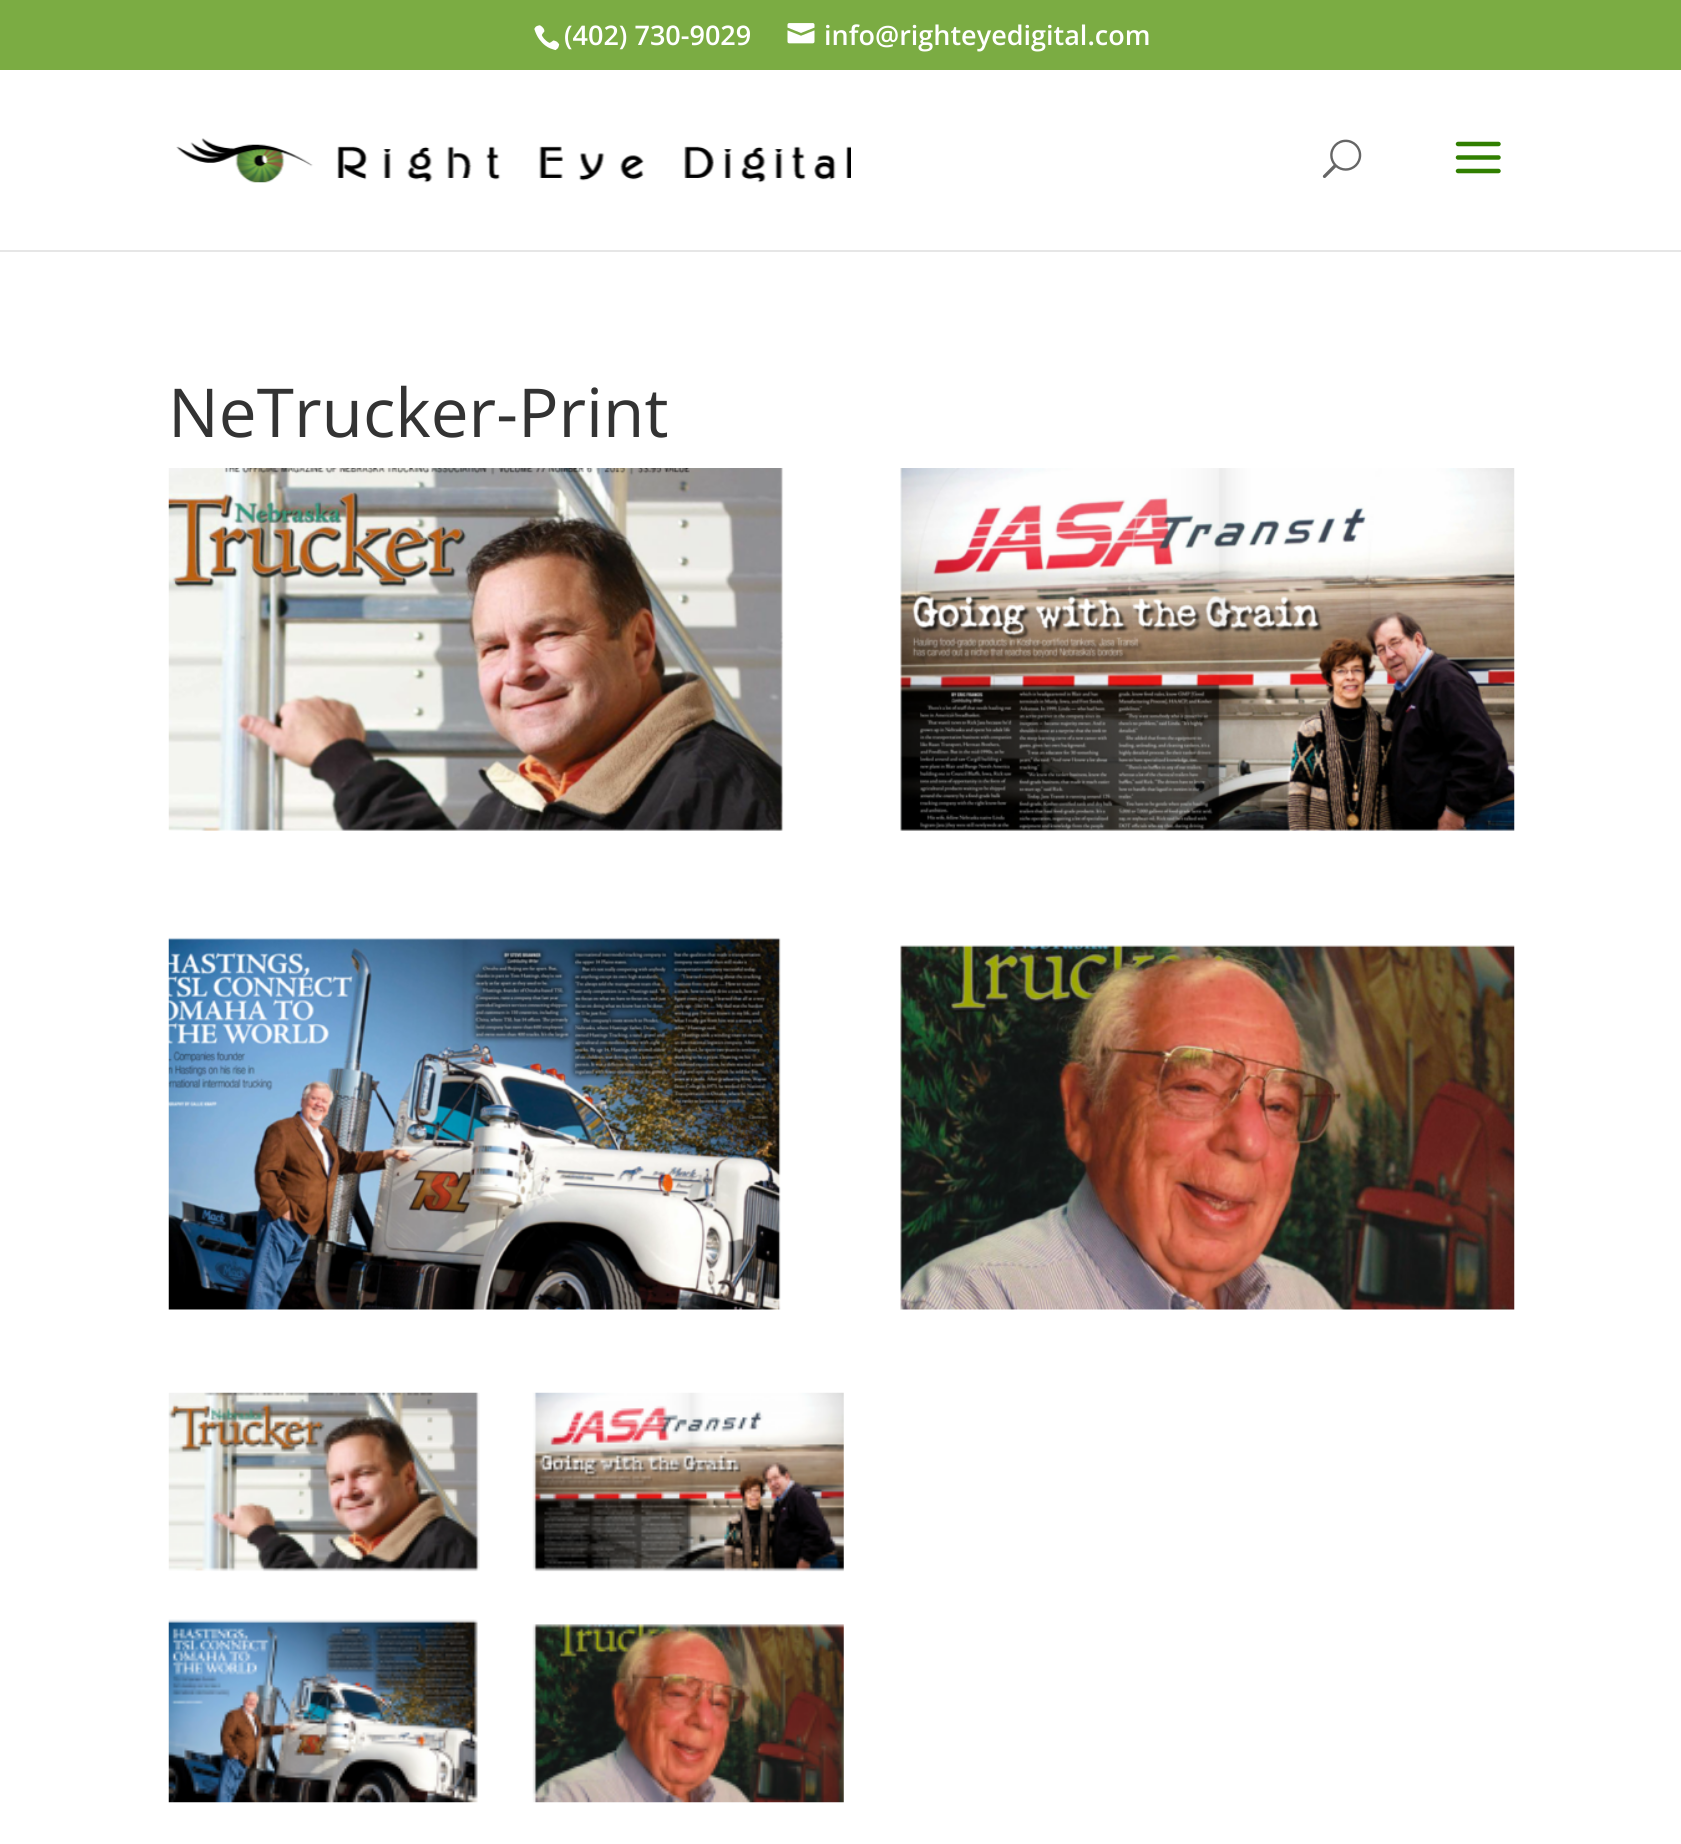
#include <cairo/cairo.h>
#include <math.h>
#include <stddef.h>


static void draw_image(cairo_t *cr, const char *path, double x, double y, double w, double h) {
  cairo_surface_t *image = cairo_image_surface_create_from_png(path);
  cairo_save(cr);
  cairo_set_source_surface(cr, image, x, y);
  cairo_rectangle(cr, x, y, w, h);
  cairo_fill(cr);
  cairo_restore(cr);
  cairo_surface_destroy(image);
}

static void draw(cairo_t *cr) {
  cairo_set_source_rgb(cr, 1, 1, 1);
  cairo_paint(cr);
  cairo_set_source_rgb(cr, 123 / 255.0, 172 / 255.0, 67 / 255.0);
  cairo_rectangle(cr, 0, 0, 1681, 70);
  cairo_fill(cr);
  draw_image(cr, "images/1.png", 534, 25, 26, 26);
  draw_image(cr, "images/2.png", 787, 23, 28, 21);
  cairo_set_source_rgb(cr, 230 / 255.0, 230 / 255.0, 230 / 255.0);
  cairo_rectangle(cr, 0, 250, 1681, 2);
  cairo_fill(cr);
  draw_image(cr, "images/3.png", 176, 138, 675, 45);
  draw_image(cr, "images/4.png", 1322, 139, 40, 39);
  draw_image(cr, "images/5.png", 1455, 141, 46, 33);
  draw_image(cr, "images/6.png", 168, 468, 1347, 842);
  draw_image(cr, "images/7.png", 168, 1392, 676, 411);
  cairo_select_font_face(cr, "Open Sans SemiBold", CAIRO_FONT_SLANT_NORMAL, CAIRO_FONT_WEIGHT_NORMAL);
  cairo_set_font_size(cr, 27);
  cairo_set_source_rgb(cr, 1, 1, 1);
  cairo_move_to(cr, 564, 45);
  cairo_show_text(cr, "(402) 730-9029");
  cairo_move_to(cr, 824, 45);
  cairo_show_text(cr, "info@righteyedigital.com");
  cairo_select_font_face(cr, "Open Sans", CAIRO_FONT_SLANT_NORMAL, CAIRO_FONT_WEIGHT_NORMAL);
  cairo_set_font_size(cr, 67.5);
  cairo_set_source_rgb(cr, 51 / 255.0, 51 / 255.0, 51 / 255.0);
  cairo_move_to(cr, 168, 437);
  cairo_show_text(cr, "NeTrucker-Print");
}

int main(void) {
  cairo_surface_t *surface = cairo_image_surface_create(CAIRO_FORMAT_RGB24, 1681, 1844);
  cairo_t *cr = cairo_create(surface);
  cairo_font_options_t *options = cairo_font_options_create();
  cairo_font_options_set_hint_metrics(options, CAIRO_HINT_METRICS_OFF);
  cairo_font_options_set_hint_style(options, CAIRO_HINT_STYLE_NONE);
  cairo_set_font_options(cr, options);
  cairo_set_miter_limit(cr, 4);
  draw(cr);
  cairo_surface_write_to_png(surface, "out.png");
  cairo_font_options_destroy(options);
  cairo_destroy(cr);
  cairo_surface_destroy(surface);
  return 0;
}
